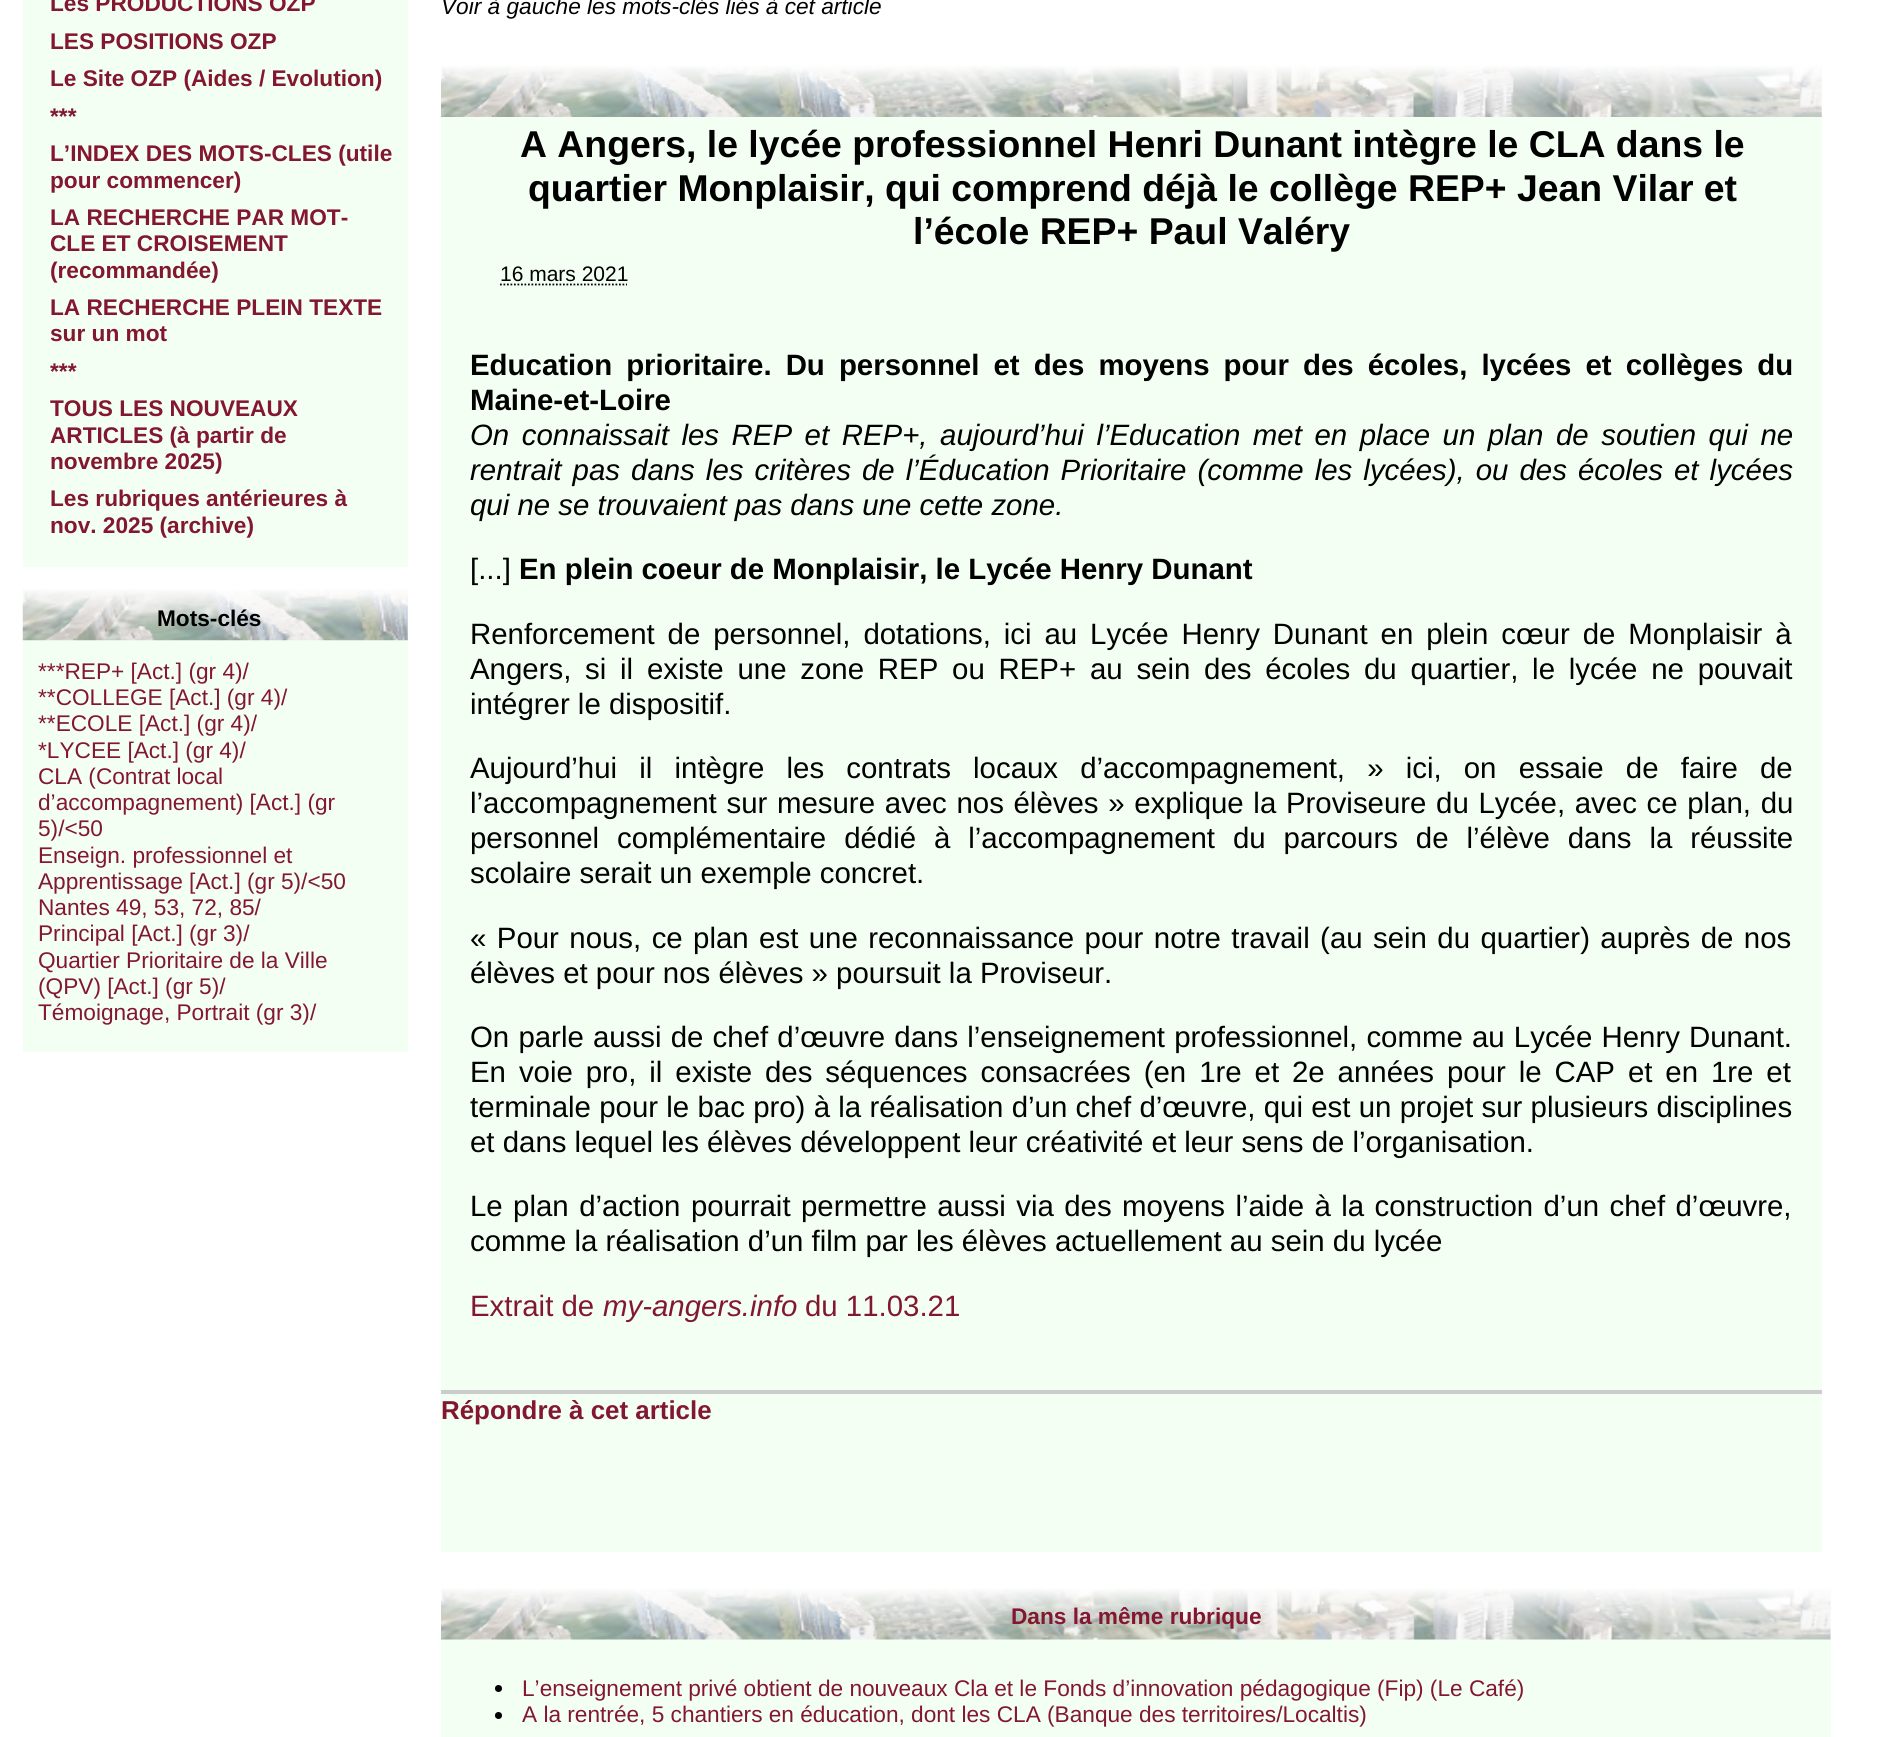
#include <cairo/cairo.h>
#include <math.h>
#include <stddef.h>


static void draw_spaced(cairo_t *cr, double x, double y, const char *s, double letter, double word) {
  cairo_move_to(cr, x, y);
  while (*s) {
    char ch[5] = {0};
    int n = 0;
    do ch[n++] = *s++; while ((*s & 0xC0) == 0x80);
    cairo_show_text(cr, ch);
    cairo_rel_move_to(cr, letter + word * (*ch == ' '), 0);
  }
}

static void draw_image(cairo_t *cr, const char *path, double x, double y, double w, double h) {
  cairo_surface_t *image = cairo_image_surface_create_from_png(path);
  cairo_save(cr);
  cairo_set_source_surface(cr, image, x, y);
  cairo_rectangle(cr, x, y, w, h);
  cairo_fill(cr);
  cairo_restore(cr);
  cairo_surface_destroy(image);
}

static void draw(cairo_t *cr) {
  cairo_set_source_rgb(cr, 1, 1, 1);
  cairo_paint(cr);
  cairo_set_source_rgb(cr, 243 / 255.0, 1, 243 / 255.0);
  cairo_rectangle(cr, 23, 0, 385, 567);
  cairo_fill(cr);
  cairo_rectangle(cr, 23, 588, 385, 464);
  cairo_fill(cr);
  draw_image(cr, "images/1.png", 22, 588, 386, 53);
  cairo_rectangle(cr, 441, 65, 1381, 1487);
  cairo_fill(cr);
  draw_image(cr, "images/2.png", 441, 65, 1381, 52);
  cairo_new_path(cr);
  cairo_move_to(cr, 500, 284.5);
  cairo_line_to(cr, 627, 284.5);
  cairo_set_source_rgb(cr, 0, 0, 0);
  cairo_set_line_width(cr, 1.8);
  cairo_set_dash(cr, (double[]){1.75, 1.75}, 2, 0);
  cairo_stroke(cr);
  cairo_set_source_rgb(cr, 204 / 255.0, 204 / 255.0, 204 / 255.0);
  cairo_rectangle(cr, 441, 1390, 1381, 4);
  cairo_fill(cr);
  cairo_set_source_rgb(cr, 243 / 255.0, 1, 243 / 255.0);
  cairo_rectangle(cr, 441, 1587, 1390, 150);
  cairo_fill(cr);
  draw_image(cr, "images/3.png", 441, 1587, 1390, 53);
  cairo_set_source_rgb(cr, 0, 0, 0);
  cairo_arc(cr, 498.5, 1688.5, 3.5, 0, 2 * M_PI);
  cairo_fill(cr);
  cairo_arc(cr, 498.5, 1715.5, 3.5, 0, 2 * M_PI);
  cairo_fill(cr);
  cairo_select_font_face(cr, "Liberation Sans", CAIRO_FONT_SLANT_NORMAL, CAIRO_FONT_WEIGHT_BOLD);
  cairo_set_font_size(cr, 22.65);
  cairo_set_source_rgb(cr, 131 / 255.0, 23 / 255.0, 47 / 255.0);
  cairo_move_to(cr, 50, 11);
  cairo_show_text(cr, "Les PRODUCTIONS OZP");
  cairo_move_to(cr, 50, 49);
  cairo_show_text(cr, "LES POSITIONS OZP");
  cairo_move_to(cr, 50, 86);
  cairo_show_text(cr, "Le Site OZP (Aides / Evolution)");
  cairo_move_to(cr, 50, 124);
  cairo_show_text(cr, "***");
  cairo_move_to(cr, 50, 161);
  cairo_show_text(cr, "L’INDEX DES MOTS-CLES (utile");
  cairo_move_to(cr, 50, 188);
  cairo_show_text(cr, "pour commencer)");
  cairo_move_to(cr, 50, 225);
  cairo_show_text(cr, "LA RECHERCHE PAR MOT-");
  cairo_move_to(cr, 50, 251);
  cairo_show_text(cr, "CLE ET CROISEMENT");
  cairo_move_to(cr, 50, 278);
  cairo_show_text(cr, "(recommandée)");
  cairo_move_to(cr, 50, 315);
  cairo_show_text(cr, "LA RECHERCHE PLEIN TEXTE");
  cairo_move_to(cr, 50, 341);
  cairo_show_text(cr, "sur un mot");
  cairo_move_to(cr, 50, 379);
  cairo_show_text(cr, "***");
  cairo_move_to(cr, 50, 416);
  cairo_show_text(cr, "TOUS LES NOUVEAUX");
  cairo_move_to(cr, 50, 443);
  cairo_show_text(cr, "ARTICLES (à partir de");
  cairo_move_to(cr, 50, 469);
  cairo_show_text(cr, "novembre 2025)");
  cairo_move_to(cr, 50, 506);
  cairo_show_text(cr, "Les rubriques antérieures à");
  cairo_move_to(cr, 50, 533);
  cairo_show_text(cr, "nov. 2025 (archive)");
  cairo_set_source_rgb(cr, 0, 0, 0);
  cairo_move_to(cr, 157, 626);
  cairo_show_text(cr, "Mots-clés");
  cairo_select_font_face(cr, "Liberation Sans", CAIRO_FONT_SLANT_NORMAL, CAIRO_FONT_WEIGHT_NORMAL);
  cairo_set_source_rgb(cr, 131 / 255.0, 23 / 255.0, 47 / 255.0);
  cairo_move_to(cr, 38, 679);
  cairo_show_text(cr, "***REP+ [Act.] (gr 4)/");
  cairo_move_to(cr, 38, 705);
  cairo_show_text(cr, "**COLLEGE [Act.] (gr 4)/");
  cairo_move_to(cr, 38, 731);
  cairo_show_text(cr, "**ECOLE [Act.] (gr 4)/");
  cairo_move_to(cr, 38, 758);
  cairo_show_text(cr, "*LYCEE [Act.] (gr 4)/");
  cairo_move_to(cr, 38, 784);
  cairo_show_text(cr, "CLA (Contrat local");
  cairo_move_to(cr, 38, 810);
  cairo_show_text(cr, "d’accompagnement) [Act.] (gr");
  cairo_move_to(cr, 38, 836);
  cairo_show_text(cr, "5)/<50");
  cairo_move_to(cr, 38, 863);
  cairo_show_text(cr, "Enseign. professionnel et");
  cairo_move_to(cr, 38, 889);
  cairo_show_text(cr, "Apprentissage [Act.] (gr 5)/<50");
  cairo_move_to(cr, 38, 915);
  cairo_show_text(cr, "Nantes 49, 53, 72, 85/");
  cairo_move_to(cr, 38, 941);
  cairo_show_text(cr, "Principal [Act.] (gr 3)/");
  cairo_move_to(cr, 38, 968);
  cairo_show_text(cr, "Quartier Prioritaire de la Ville");
  cairo_move_to(cr, 38, 994);
  cairo_show_text(cr, "(QPV) [Act.] (gr 5)/");
  cairo_move_to(cr, 38, 1020);
  cairo_show_text(cr, "Témoignage, Portrait (gr 3)/");
  cairo_select_font_face(cr, "Liberation Sans", CAIRO_FONT_SLANT_ITALIC, CAIRO_FONT_WEIGHT_NORMAL);
  cairo_set_source_rgb(cr, 0, 0, 0);
  cairo_move_to(cr, 441, 14);
  cairo_show_text(cr, "Voir à gauche les mots-clés liés à cet article");
  cairo_select_font_face(cr, "Liberation Sans", CAIRO_FONT_SLANT_NORMAL, CAIRO_FONT_WEIGHT_BOLD);
  cairo_set_font_size(cr, 37.35);
  cairo_move_to(cr, 520, 157);
  cairo_show_text(cr, "A Angers, le lycée professionnel Henri Dunant intègre le CLA dans le");
  cairo_move_to(cr, 528, 201);
  cairo_show_text(cr, "quartier Monplaisir, qui comprend déjà le collège REP+ Jean Vilar et");
  cairo_move_to(cr, 913, 244);
  cairo_show_text(cr, "l’école REP+ Paul Valéry");
  cairo_select_font_face(cr, "Liberation Sans", CAIRO_FONT_SLANT_NORMAL, CAIRO_FONT_WEIGHT_NORMAL);
  cairo_set_font_size(cr, 21);
  cairo_move_to(cr, 500, 281);
  cairo_show_text(cr, "16 mars 2021");
  cairo_select_font_face(cr, "Liberation Sans", CAIRO_FONT_SLANT_NORMAL, CAIRO_FONT_WEIGHT_BOLD);
  cairo_set_font_size(cr, 29.4);
  draw_spaced(cr, 470, 375, "Education prioritaire. Du personnel et des moyens pour des écoles, lycées et collèges du", 0, 5.9);
  cairo_move_to(cr, 470, 410);
  cairo_show_text(cr, "Maine-et-Loire");
  cairo_select_font_face(cr, "Liberation Sans", CAIRO_FONT_SLANT_ITALIC, CAIRO_FONT_WEIGHT_NORMAL);
  draw_spaced(cr, 470, 445, "On connaissait les REP et REP+, aujourd’hui l’Education met en place un plan de soutien qui ne", 0, 4.4);
  draw_spaced(cr, 470, 480, "rentrait pas dans les critères de l’Éducation Prioritaire (comme les lycées), ou des écoles et lycées", 0, 2.9);
  cairo_move_to(cr, 470, 515);
  cairo_show_text(cr, "qui ne se trouvaient pas dans une cette zone.");
  cairo_select_font_face(cr, "Liberation Sans", CAIRO_FONT_SLANT_NORMAL, CAIRO_FONT_WEIGHT_NORMAL);
  cairo_move_to(cr, 470, 579);
  cairo_show_text(cr, "[...]");
  cairo_select_font_face(cr, "Liberation Sans", CAIRO_FONT_SLANT_NORMAL, CAIRO_FONT_WEIGHT_BOLD);
  cairo_move_to(cr, 519, 579);
  cairo_show_text(cr, "En plein coeur de Monplaisir, le Lycée Henry Dunant");
  cairo_select_font_face(cr, "Liberation Sans", CAIRO_FONT_SLANT_NORMAL, CAIRO_FONT_WEIGHT_NORMAL);
  draw_spaced(cr, 470, 644, "Renforcement de personnel, dotations, ici au Lycée Henry Dunant en plein cœur de Monplaisir à", 0, 4.75);
  draw_spaced(cr, 470, 679, "Angers, si il existe une zone REP ou REP+ au sein des écoles du quartier, le lycée ne pouvait", 0, 5.6);
  cairo_move_to(cr, 470, 714);
  cairo_show_text(cr, "intégrer le dispositif.");
  draw_spaced(cr, 470, 778, "Aujourd’hui il intègre les contrats locaux d’accompagnement, » ici, on essaie de faire de", 0, 14);
  draw_spaced(cr, 470, 813, "l’accompagnement sur mesure avec nos élèves » explique la Proviseure du Lycée, avec ce plan, du", 0, 1.5);
  draw_spaced(cr, 470, 848, "personnel complémentaire dédié à l’accompagnement du parcours de l’élève dans la réussite", 0, 9.75);
  cairo_move_to(cr, 470, 883);
  cairo_show_text(cr, "scolaire serait un exemple concret.");
  draw_spaced(cr, 470, 948, "« Pour nous, ce plan est une reconnaissance pour notre travail (au sein du quartier) auprès de nos", 0, 2.25);
  cairo_move_to(cr, 470, 983);
  cairo_show_text(cr, "élèves et pour nos élèves » poursuit la Proviseur.");
  draw_spaced(cr, 470, 1047, "On parle aussi de chef d’œuvre dans l’enseignement professionnel, comme au Lycée Henry Dunant.", 0, 1);
  draw_spaced(cr, 470, 1082, "En voie pro, il existe des séquences consacrées (en 1re et 2e années pour le CAP et en 1re et", 0, 4.75);
  draw_spaced(cr, 470, 1117, "terminale pour le bac pro) à la réalisation d’un chef d’œuvre, qui est un projet sur plusieurs disciplines", 0, 0.1);
  cairo_move_to(cr, 470, 1152);
  cairo_show_text(cr, "et dans lequel les élèves développent leur créativité et leur sens de l’organisation.");
  draw_spaced(cr, 470, 1216, "Le plan d’action pourrait permettre aussi via des moyens l’aide à la construction d’un chef d’œuvre,", 0, 2.25);
  cairo_move_to(cr, 470, 1251);
  cairo_show_text(cr, "comme la réalisation d’un film par les élèves actuellement au sein du lycée");
  cairo_set_source_rgb(cr, 131 / 255.0, 23 / 255.0, 47 / 255.0);
  cairo_move_to(cr, 470, 1316);
  cairo_show_text(cr, "Extrait de");
  cairo_select_font_face(cr, "Liberation Sans", CAIRO_FONT_SLANT_ITALIC, CAIRO_FONT_WEIGHT_NORMAL);
  cairo_move_to(cr, 603, 1316);
  cairo_show_text(cr, "my-angers.info");
  cairo_select_font_face(cr, "Liberation Sans", CAIRO_FONT_SLANT_NORMAL, CAIRO_FONT_WEIGHT_NORMAL);
  cairo_move_to(cr, 805, 1316);
  cairo_show_text(cr, "du 11.03.21");
  cairo_select_font_face(cr, "Liberation Sans", CAIRO_FONT_SLANT_NORMAL, CAIRO_FONT_WEIGHT_BOLD);
  cairo_set_font_size(cr, 25.9);
  cairo_move_to(cr, 441, 1419);
  cairo_show_text(cr, "Répondre à cet article");
  cairo_set_font_size(cr, 22.65);
  cairo_move_to(cr, 1011, 1624);
  cairo_show_text(cr, "Dans la même rubrique");
  cairo_select_font_face(cr, "Liberation Sans", CAIRO_FONT_SLANT_NORMAL, CAIRO_FONT_WEIGHT_NORMAL);
  cairo_move_to(cr, 522, 1696);
  cairo_show_text(cr, "L’enseignement privé obtient de nouveaux Cla et le Fonds d’innovation pédagogique (Fip) (Le Café)");
  cairo_move_to(cr, 522, 1722);
  cairo_show_text(cr, "A la rentrée, 5 chantiers en éducation, dont les CLA (Banque des territoires/Localtis)");
}

int main(void) {
  cairo_surface_t *surface = cairo_image_surface_create(CAIRO_FORMAT_RGB24, 1895, 1737);
  cairo_t *cr = cairo_create(surface);
  cairo_font_options_t *options = cairo_font_options_create();
  cairo_font_options_set_hint_metrics(options, CAIRO_HINT_METRICS_OFF);
  cairo_font_options_set_hint_style(options, CAIRO_HINT_STYLE_NONE);
  cairo_set_font_options(cr, options);
  cairo_set_miter_limit(cr, 4);
  draw(cr);
  cairo_surface_write_to_png(surface, "out.png");
  cairo_font_options_destroy(options);
  cairo_destroy(cr);
  cairo_surface_destroy(surface);
  return 0;
}
